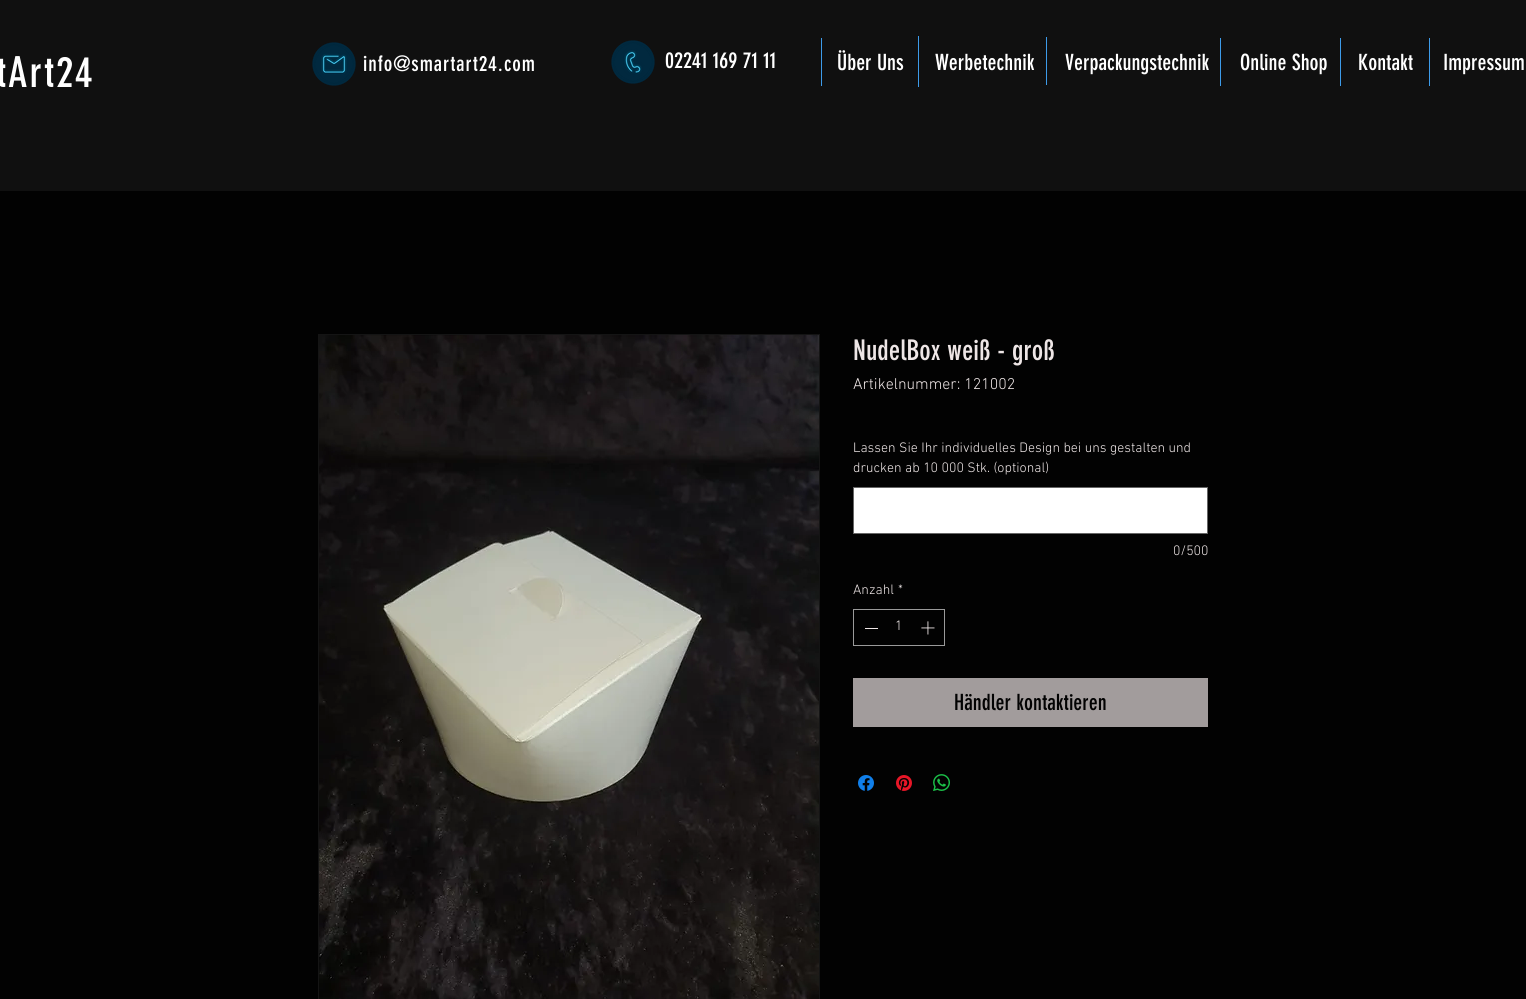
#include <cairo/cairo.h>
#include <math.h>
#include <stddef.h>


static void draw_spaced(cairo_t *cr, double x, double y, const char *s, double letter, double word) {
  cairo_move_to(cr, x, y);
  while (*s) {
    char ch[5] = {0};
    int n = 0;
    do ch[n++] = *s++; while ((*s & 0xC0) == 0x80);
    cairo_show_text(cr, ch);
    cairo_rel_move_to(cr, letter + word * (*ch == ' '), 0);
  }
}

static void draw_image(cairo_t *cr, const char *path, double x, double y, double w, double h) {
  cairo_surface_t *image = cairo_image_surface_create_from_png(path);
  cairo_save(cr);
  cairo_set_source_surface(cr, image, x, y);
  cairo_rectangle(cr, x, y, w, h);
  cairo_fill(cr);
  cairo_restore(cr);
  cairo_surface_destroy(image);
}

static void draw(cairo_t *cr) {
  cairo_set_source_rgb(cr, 2 / 255.0, 2 / 255.0, 2 / 255.0);
  cairo_paint(cr);
  cairo_set_source_rgb(cr, 16 / 255.0, 16 / 255.0, 16 / 255.0);
  cairo_rectangle(cr, 0, 0, 1526, 191);
  cairo_fill(cr);
  draw_image(cr, "images/1.png", 312, 42, 44, 44);
  draw_image(cr, "images/2.png", 611, 40, 44, 44);
  cairo_set_source_rgb(cr, 61 / 255.0, 155 / 255.0, 233 / 255.0);
  cairo_rectangle(cr, 821, 38, 1, 48);
  cairo_fill(cr);
  cairo_rectangle(cr, 918, 36, 1, 51);
  cairo_fill(cr);
  cairo_rectangle(cr, 1046, 37, 1, 48);
  cairo_fill(cr);
  cairo_rectangle(cr, 1220, 38, 1, 48);
  cairo_fill(cr);
  cairo_rectangle(cr, 1340, 38, 1, 48);
  cairo_fill(cr);
  cairo_rectangle(cr, 1429, 38, 1, 48);
  cairo_fill(cr);
  cairo_rectangle(cr, 318.5, 334.5, 501, 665);
  cairo_set_source_rgb(cr, 20 / 255.0, 20 / 255.0, 20 / 255.0);
  cairo_set_line_width(cr, 1);
  cairo_stroke(cr);
  draw_image(cr, "images/3.png", 319, 335, 500, 664);
  cairo_set_source_rgb(cr, 1, 1, 1);
  cairo_rectangle(cr, 853.5, 487.5, 354, 46);
  cairo_fill_preserve(cr);
  cairo_set_source_rgb(cr, 102 / 255.0, 102 / 255.0, 102 / 255.0);
  cairo_stroke(cr);
  cairo_rectangle(cr, 853.5, 609.5, 91, 36);
  cairo_set_source_rgb(cr, 154 / 255.0, 154 / 255.0, 154 / 255.0);
  cairo_stroke(cr);
  cairo_set_source_rgb(cr, 238 / 255.0, 230 / 255.0, 230 / 255.0);
  cairo_rectangle(cr, 865, 628, 13, 1);
  cairo_fill(cr);
  draw_image(cr, "images/4.png", 921, 621, 14, 14);
  cairo_set_source_rgb(cr, 162 / 255.0, 156 / 255.0, 156 / 255.0);
  cairo_rectangle(cr, 853, 678, 355, 49);
  cairo_fill(cr);
  draw_image(cr, "images/5.png", 858, 775, 16, 16);
  draw_image(cr, "images/6.png", 896, 775, 16, 16);
  draw_image(cr, "images/7.png", 933, 774, 17, 17);
  cairo_select_font_face(cr, "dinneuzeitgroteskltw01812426", CAIRO_FONT_SLANT_NORMAL, CAIRO_FONT_WEIGHT_NORMAL);
  cairo_set_font_size(cr, 42);
  cairo_set_source_rgb(cr, 1, 1, 1);
  draw_spaced(cr, -4, 87, "tArt24", 2, 0);
  cairo_set_font_size(cr, 21);
  draw_spaced(cr, 363, 71, "info@smartart24.com", 1, 0);
  cairo_set_font_size(cr, 22);
  cairo_move_to(cr, 665, 68);
  cairo_show_text(cr, "02241 169 71 11");
  cairo_move_to(cr, 837, 70);
  cairo_show_text(cr, "Über Uns");
  cairo_move_to(cr, 935, 70);
  cairo_show_text(cr, "Werbetechnik");
  cairo_move_to(cr, 1065, 70);
  cairo_show_text(cr, "Verpackungstechnik");
  cairo_move_to(cr, 1240, 70);
  cairo_show_text(cr, "Online Shop");
  cairo_move_to(cr, 1358, 70);
  cairo_show_text(cr, "Kontakt");
  cairo_move_to(cr, 1443, 70);
  cairo_show_text(cr, "Impressum");
  cairo_set_font_size(cr, 28);
  cairo_set_source_rgb(cr, 238 / 255.0, 230 / 255.0, 230 / 255.0);
  cairo_move_to(cr, 853, 360);
  cairo_show_text(cr, "NudelBox weiß - groß");
  cairo_select_font_face(cr, "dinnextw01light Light", CAIRO_FONT_SLANT_NORMAL, CAIRO_FONT_WEIGHT_NORMAL);
  cairo_set_font_size(cr, 16);
  cairo_move_to(cr, 853, 389);
  cairo_show_text(cr, "Artikelnummer: 121002");
  cairo_set_font_size(cr, 14);
  cairo_move_to(cr, 853, 452);
  cairo_show_text(cr, "Lassen Sie Ihr individuelles Design bei uns gestalten und");
  cairo_move_to(cr, 853, 472);
  cairo_show_text(cr, "drucken ab 10 000 Stk. (optional)");
  cairo_move_to(cr, 1173, 555);
  cairo_show_text(cr, "0/500");
  cairo_move_to(cr, 853, 594);
  cairo_show_text(cr, "Anzahl");
  cairo_move_to(cr, 898, 594);
  cairo_show_text(cr, "*");
  cairo_move_to(cr, 895, 630);
  cairo_show_text(cr, "1");
  cairo_select_font_face(cr, "dinneuzeitgroteskltw01812426", CAIRO_FONT_SLANT_NORMAL, CAIRO_FONT_WEIGHT_NORMAL);
  cairo_set_font_size(cr, 22);
  cairo_set_source_rgb(cr, 2 / 255.0, 2 / 255.0, 2 / 255.0);
  cairo_move_to(cr, 954, 710);
  cairo_show_text(cr, "Händler kontaktieren");
}

int main(void) {
  cairo_surface_t *surface = cairo_image_surface_create(CAIRO_FORMAT_RGB24, 1526, 999);
  cairo_t *cr = cairo_create(surface);
  cairo_font_options_t *options = cairo_font_options_create();
  cairo_font_options_set_hint_metrics(options, CAIRO_HINT_METRICS_OFF);
  cairo_font_options_set_hint_style(options, CAIRO_HINT_STYLE_NONE);
  cairo_set_font_options(cr, options);
  cairo_set_miter_limit(cr, 4);
  draw(cr);
  cairo_surface_write_to_png(surface, "out.png");
  cairo_font_options_destroy(options);
  cairo_destroy(cr);
  cairo_surface_destroy(surface);
  return 0;
}
